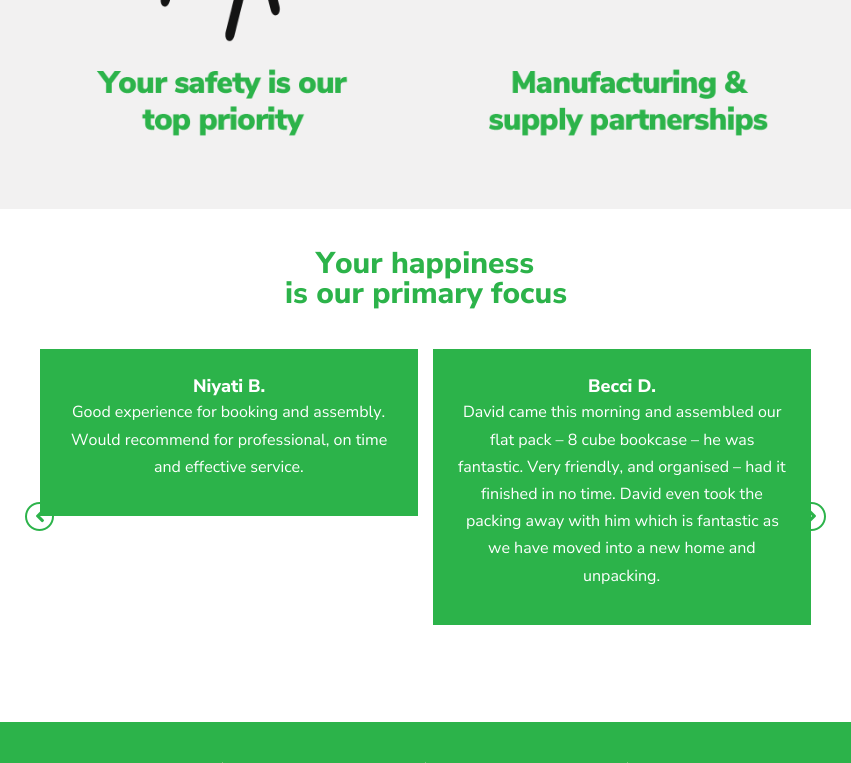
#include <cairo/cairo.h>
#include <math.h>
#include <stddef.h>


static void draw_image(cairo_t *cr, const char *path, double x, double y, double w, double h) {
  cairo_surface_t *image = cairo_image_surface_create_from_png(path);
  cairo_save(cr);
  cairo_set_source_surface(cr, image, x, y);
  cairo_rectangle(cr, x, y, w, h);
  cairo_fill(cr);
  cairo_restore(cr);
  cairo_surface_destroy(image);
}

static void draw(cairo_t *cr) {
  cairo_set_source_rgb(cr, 1, 1, 1);
  cairo_paint(cr);
  cairo_set_source_rgb(cr, 242 / 255.0, 241 / 255.0, 241 / 255.0);
  cairo_rectangle(cr, 0, 0, 851, 209);
  cairo_fill(cr);
  draw_image(cr, "images/1.png", 96, 0, 252, 136);
  draw_image(cr, "images/2.png", 489, 69, 279, 67);
  cairo_set_source_rgb(cr, 44 / 255.0, 179 / 255.0, 74 / 255.0);
  cairo_rectangle(cr, 40, 349, 378, 167);
  cairo_fill(cr);
  cairo_arc(cr, 39.5, 516.5, 13.5, 0, 2 * M_PI);
  cairo_stroke(cr);
  draw_image(cr, "images/3.png", 36, 511, 8, 12);
  cairo_rectangle(cr, 433, 349, 378, 276);
  cairo_fill(cr);
  cairo_arc(cr, 811.5, 516.5, 13.5, 0, 2 * M_PI);
  cairo_stroke(cr);
  draw_image(cr, "images/4.png", 811, 510, 5, 12);
  cairo_rectangle(cr, 0, 722, 851, 41);
  cairo_fill(cr);
  cairo_set_source_rgb(cr, 123 / 255.0, 196 / 255.0, 128 / 255.0);
  cairo_rectangle(cr, 222, 762, 1, 1);
  cairo_fill(cr);
  cairo_rectangle(cr, 425, 762, 1, 1);
  cairo_fill(cr);
  cairo_rectangle(cr, 627, 762, 1, 1);
  cairo_fill(cr);
  cairo_select_font_face(cr, "Nunito Sans ExtraBold", CAIRO_FONT_SLANT_NORMAL, CAIRO_FONT_WEIGHT_NORMAL);
  cairo_set_font_size(cr, 30);
  cairo_set_source_rgb(cr, 44 / 255.0, 179 / 255.0, 74 / 255.0);
  cairo_move_to(cr, 316, 273);
  cairo_show_text(cr, "Your happiness");
  cairo_move_to(cr, 285, 303);
  cairo_show_text(cr, "is our primary focus");
  cairo_set_font_size(cr, 18);
  cairo_set_source_rgb(cr, 1, 1, 1);
  cairo_move_to(cr, 193, 392);
  cairo_show_text(cr, "Niyati B.");
  cairo_select_font_face(cr, "Nunito Sans", CAIRO_FONT_SLANT_NORMAL, CAIRO_FONT_WEIGHT_NORMAL);
  cairo_set_font_size(cr, 16);
  cairo_move_to(cr, 72, 417);
  cairo_show_text(cr, "Good experience for booking and assembly.");
  cairo_move_to(cr, 71, 445);
  cairo_show_text(cr, "Would recommend for professional, on time");
  cairo_move_to(cr, 154, 472);
  cairo_show_text(cr, "and effective service.");
  cairo_select_font_face(cr, "Nunito Sans ExtraBold", CAIRO_FONT_SLANT_NORMAL, CAIRO_FONT_WEIGHT_NORMAL);
  cairo_set_font_size(cr, 18);
  cairo_move_to(cr, 588, 392);
  cairo_show_text(cr, "Becci D.");
  cairo_select_font_face(cr, "Nunito Sans", CAIRO_FONT_SLANT_NORMAL, CAIRO_FONT_WEIGHT_NORMAL);
  cairo_set_font_size(cr, 16);
  cairo_move_to(cr, 463, 417);
  cairo_show_text(cr, "David came this morning and assembled our");
  cairo_move_to(cr, 490, 445);
  cairo_show_text(cr, "flat pack – 8 cube bookcase – he was");
  cairo_move_to(cr, 458, 472);
  cairo_show_text(cr, "fantastic. Very friendly, and organised – had it");
  cairo_move_to(cr, 481, 499);
  cairo_show_text(cr, "finished in no time. David even took the");
  cairo_move_to(cr, 466, 526);
  cairo_show_text(cr, "packing away with him which is fantastic as");
  cairo_move_to(cr, 488, 553);
  cairo_show_text(cr, "we have moved into a new home and");
  cairo_move_to(cr, 583, 581);
  cairo_show_text(cr, "unpacking.");
}

int main(void) {
  cairo_surface_t *surface = cairo_image_surface_create(CAIRO_FORMAT_RGB24, 851, 763);
  cairo_t *cr = cairo_create(surface);
  cairo_font_options_t *options = cairo_font_options_create();
  cairo_font_options_set_hint_metrics(options, CAIRO_HINT_METRICS_OFF);
  cairo_font_options_set_hint_style(options, CAIRO_HINT_STYLE_NONE);
  cairo_set_font_options(cr, options);
  cairo_set_miter_limit(cr, 4);
  draw(cr);
  cairo_surface_write_to_png(surface, "out.png");
  cairo_font_options_destroy(options);
  cairo_destroy(cr);
  cairo_surface_destroy(surface);
  return 0;
}
